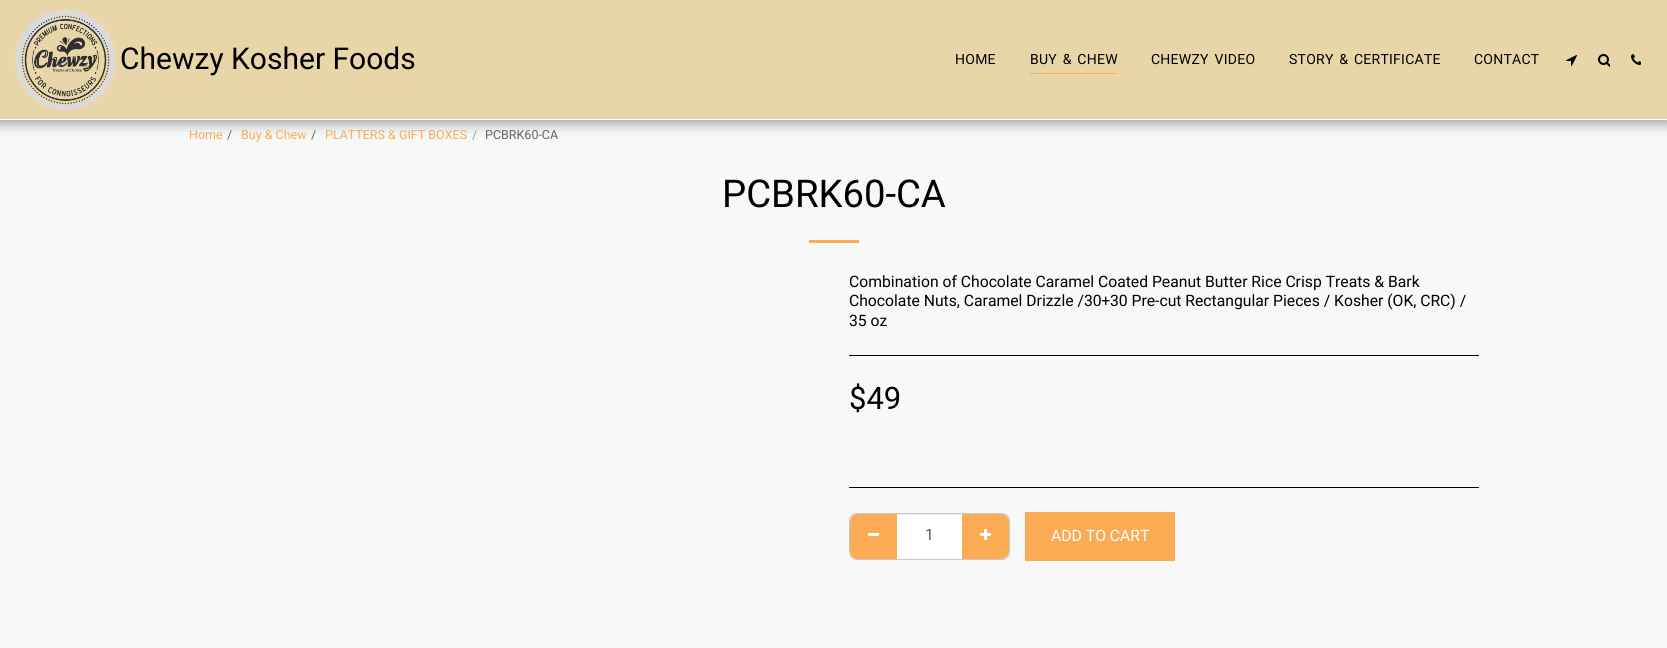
#include <cairo/cairo.h>
#include <math.h>
#include <stddef.h>


static void draw_spaced(cairo_t *cr, double x, double y, const char *s, double letter, double word) {
  cairo_move_to(cr, x, y);
  while (*s) {
    char ch[5] = {0};
    int n = 0;
    do ch[n++] = *s++; while ((*s & 0xC0) == 0x80);
    cairo_show_text(cr, ch);
    cairo_rel_move_to(cr, letter + word * (*ch == ' '), 0);
  }
}

static void rounded_rect(cairo_t *cr, double x, double y, double w, double h, double r) {
  cairo_new_sub_path(cr);
  cairo_arc(cr, x + w - r, y + h - r, r, 0, M_PI / 2);
  cairo_arc(cr, x + r, y + h - r, r, M_PI / 2, M_PI);
  cairo_arc(cr, x + r, y + r, r, M_PI, 1.5 * M_PI);
  cairo_arc(cr, x + w - r, y + r, r, 1.5 * M_PI, 2 * M_PI);
  cairo_close_path(cr);
}

static void draw_shadow(cairo_t *cr, double x, double y, double w, double h, double r, double blur, double alpha) {
  cairo_push_group_with_content(cr, CAIRO_CONTENT_ALPHA);
  cairo_set_operator(cr, CAIRO_OPERATOR_SOURCE);
  for (int i = 15; i >= -15 && fmin(w, h) + blur * i / 3 > 0; i -= 2) {
    double e = blur * i / 6;
    cairo_set_source_rgba(cr, 0, 0, 0, alpha * erfc((i - 1) / 8.5) / 2);
    rounded_rect(cr, x - e, y - e, w + 2 * e, h + 2 * e, fmax(0, fmin(r + e + blur * .6, fmin(w, h) / 2 + e)));
    cairo_fill(cr);
  }
  cairo_pattern_t *soft = cairo_pop_group(cr);
  cairo_mask(cr, soft);
  cairo_pattern_destroy(soft);
}

static void draw_image(cairo_t *cr, const char *path, double x, double y, double w, double h) {
  cairo_surface_t *image = cairo_image_surface_create_from_png(path);
  cairo_save(cr);
  cairo_set_source_surface(cr, image, x, y);
  cairo_rectangle(cr, x, y, w, h);
  cairo_fill(cr);
  cairo_restore(cr);
  cairo_surface_destroy(image);
}

static void draw(cairo_t *cr) {
  cairo_set_source_rgb(cr, 247 / 255.0, 249 / 255.0, 248 / 255.0);
  cairo_paint(cr);
  cairo_set_source_rgb(cr, 0, 0, 0);
  draw_shadow(cr, -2, 0, 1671, 124, 0, 6, 0.35);
  cairo_set_source_rgb(cr, 232 / 255.0, 214 / 255.0, 168 / 255.0);
  cairo_rectangle(cr, 0, 0, 1667, 119);
  cairo_fill(cr);
  cairo_set_source_rgb(cr, 1, 1, 1);
  cairo_rectangle(cr, 0, 119, 1667, 1);
  cairo_fill(cr);
  draw_image(cr, "images/1.png", 15, 9, 101, 102);
  cairo_set_source_rgb(cr, 252 / 255.0, 171 / 255.0, 85 / 255.0);
  cairo_rectangle(cr, 1030, 73, 87, 1);
  cairo_fill(cr);
  draw_image(cr, "images/2.png", 1566, 55, 11, 11);
  draw_image(cr, "images/3.png", 1598, 54, 12, 13);
  draw_image(cr, "images/4.png", 1631, 54, 10, 11);
  cairo_rectangle(cr, 809, 240, 50, 3);
  cairo_fill(cr);
  cairo_set_source_rgb(cr, 0, 0, 0);
  cairo_rectangle(cr, 849, 355, 630, 1);
  cairo_fill(cr);
  cairo_rectangle(cr, 849, 487, 630, 1);
  cairo_fill(cr);
  rounded_rect(cr, 849.5, 513.5, 160, 46, 7.5);
  cairo_set_source_rgb(cr, 198 / 255.0, 199 / 255.0, 198 / 255.0);
  cairo_set_line_width(cr, 1);
  cairo_stroke(cr);
  cairo_set_source_rgb(cr, 252 / 255.0, 171 / 255.0, 85 / 255.0);
  cairo_new_path(cr);
  cairo_move_to(cr, 858, 514);
  cairo_line_to(cr, 898, 514);
  cairo_line_to(cr, 898, 559);
  cairo_line_to(cr, 858, 559);
  cairo_curve_to(cr, 853.5, 559, 850, 555.5, 850, 551);
  cairo_line_to(cr, 850, 522);
  cairo_curve_to(cr, 850, 517.5, 853.5, 514, 858, 514);
  cairo_close_path(cr);
  cairo_fill(cr);
  cairo_set_source_rgb(cr, 1, 1, 1);
  cairo_rectangle(cr, 868, 533, 11, 3);
  cairo_fill(cr);
  cairo_set_source_rgb(cr, 252 / 255.0, 171 / 255.0, 85 / 255.0);
  cairo_new_path(cr);
  cairo_move_to(cr, 961, 514);
  cairo_line_to(cr, 1001, 514);
  cairo_curve_to(cr, 1005.5, 514, 1009, 517.5, 1009, 522);
  cairo_line_to(cr, 1009, 551);
  cairo_curve_to(cr, 1009, 555.5, 1005.5, 559, 1001, 559);
  cairo_line_to(cr, 961, 559);
  cairo_close_path(cr);
  cairo_fill(cr);
  cairo_set_source_rgb(cr, 1, 1, 1);
  cairo_rectangle(cr, 897, 515, 65, 44);
  cairo_fill(cr);
  cairo_set_source_rgb(cr, 236 / 255.0, 236 / 255.0, 236 / 255.0);
  cairo_rectangle(cr, 897, 514, 65, 1);
  cairo_fill(cr);
  draw_image(cr, "images/5.png", 980, 529, 11, 11);
  cairo_set_source_rgb(cr, 252 / 255.0, 171 / 255.0, 85 / 255.0);
  cairo_rectangle(cr, 1025, 512, 150, 49);
  cairo_fill(cr);
  cairo_select_font_face(cr, "Heebo", CAIRO_FONT_SLANT_NORMAL, CAIRO_FONT_WEIGHT_NORMAL);
  cairo_set_font_size(cr, 30);
  cairo_set_source_rgb(cr, 0, 0, 0);
  cairo_move_to(cr, 120, 69);
  cairo_show_text(cr, "Chewzy Kosher Foods");
  cairo_set_font_size(cr, 14);
  draw_spaced(cr, 955, 64, "HOME", 0.25, 0);
  draw_spaced(cr, 1030, 64, "BUY & CHEW", 0.25, 2);
  draw_spaced(cr, 1151, 64, "CHEWZY VIDEO", 0.25, 2);
  draw_spaced(cr, 1289, 64, "STORY & CERTIFICATE", 0.25, 2);
  draw_spaced(cr, 1474, 64, "CONTACT", 0.25, 0);
  cairo_set_font_size(cr, 12.5);
  cairo_set_source_rgb(cr, 252 / 255.0, 171 / 255.0, 85 / 255.0);
  cairo_move_to(cr, 189, 139);
  cairo_show_text(cr, "Home");
  cairo_set_source_rgb(cr, 99 / 255.0, 100 / 255.0, 99 / 255.0);
  cairo_move_to(cr, 227, 139);
  cairo_show_text(cr, "/");
  cairo_set_source_rgb(cr, 252 / 255.0, 171 / 255.0, 85 / 255.0);
  cairo_move_to(cr, 241, 139);
  cairo_show_text(cr, "Buy & Chew");
  cairo_set_source_rgb(cr, 99 / 255.0, 100 / 255.0, 99 / 255.0);
  cairo_move_to(cr, 311, 139);
  cairo_show_text(cr, "/");
  cairo_set_source_rgb(cr, 252 / 255.0, 171 / 255.0, 85 / 255.0);
  cairo_move_to(cr, 325, 139);
  cairo_show_text(cr, "PLATTERS & GIFT BOXES");
  cairo_set_source_rgb(cr, 158 / 255.0, 159 / 255.0, 159 / 255.0);
  cairo_move_to(cr, 472, 139);
  cairo_show_text(cr, "/");
  cairo_set_source_rgb(cr, 99 / 255.0, 100 / 255.0, 99 / 255.0);
  cairo_move_to(cr, 485, 139);
  cairo_show_text(cr, "PCBRK60-CA");
  cairo_set_font_size(cr, 38.25);
  cairo_set_source_rgb(cr, 0, 0, 0);
  cairo_move_to(cr, 722, 207);
  cairo_show_text(cr, "PCBRK60-CA");
  cairo_set_font_size(cr, 15.7);
  cairo_move_to(cr, 849, 287);
  cairo_show_text(cr, "Combination of Chocolate Caramel Coated Peanut Butter Rice Crisp Treats & Bark");
  cairo_move_to(cr, 849, 306);
  cairo_show_text(cr, "Chocolate Nuts, Caramel Drizzle /30+30 Pre-cut Rectangular Pieces / Kosher (OK, CRC) /");
  cairo_move_to(cr, 849, 326);
  cairo_show_text(cr, "35 oz");
  cairo_set_font_size(cr, 31);
  cairo_move_to(cr, 849, 409);
  cairo_show_text(cr, "$49");
  cairo_set_font_size(cr, 15.7);
  cairo_set_source_rgb(cr, 85 / 255.0, 85 / 255.0, 85 / 255.0);
  cairo_move_to(cr, 925, 540);
  cairo_show_text(cr, "1");
  cairo_set_source_rgb(cr, 1, 1, 1);
  cairo_move_to(cr, 1051, 541);
  cairo_show_text(cr, "ADD TO CART");
}

int main(void) {
  cairo_surface_t *surface = cairo_image_surface_create(CAIRO_FORMAT_RGB24, 1667, 648);
  cairo_t *cr = cairo_create(surface);
  cairo_font_options_t *options = cairo_font_options_create();
  cairo_font_options_set_hint_metrics(options, CAIRO_HINT_METRICS_OFF);
  cairo_font_options_set_hint_style(options, CAIRO_HINT_STYLE_NONE);
  cairo_set_font_options(cr, options);
  cairo_set_miter_limit(cr, 4);
  draw(cr);
  cairo_surface_write_to_png(surface, "out.png");
  cairo_font_options_destroy(options);
  cairo_destroy(cr);
  cairo_surface_destroy(surface);
  return 0;
}
